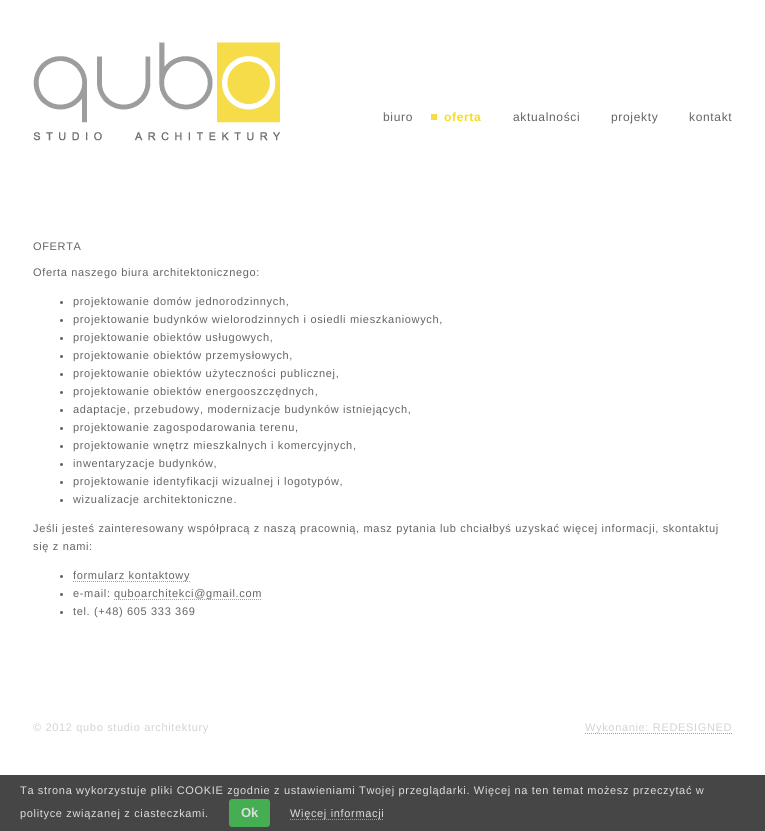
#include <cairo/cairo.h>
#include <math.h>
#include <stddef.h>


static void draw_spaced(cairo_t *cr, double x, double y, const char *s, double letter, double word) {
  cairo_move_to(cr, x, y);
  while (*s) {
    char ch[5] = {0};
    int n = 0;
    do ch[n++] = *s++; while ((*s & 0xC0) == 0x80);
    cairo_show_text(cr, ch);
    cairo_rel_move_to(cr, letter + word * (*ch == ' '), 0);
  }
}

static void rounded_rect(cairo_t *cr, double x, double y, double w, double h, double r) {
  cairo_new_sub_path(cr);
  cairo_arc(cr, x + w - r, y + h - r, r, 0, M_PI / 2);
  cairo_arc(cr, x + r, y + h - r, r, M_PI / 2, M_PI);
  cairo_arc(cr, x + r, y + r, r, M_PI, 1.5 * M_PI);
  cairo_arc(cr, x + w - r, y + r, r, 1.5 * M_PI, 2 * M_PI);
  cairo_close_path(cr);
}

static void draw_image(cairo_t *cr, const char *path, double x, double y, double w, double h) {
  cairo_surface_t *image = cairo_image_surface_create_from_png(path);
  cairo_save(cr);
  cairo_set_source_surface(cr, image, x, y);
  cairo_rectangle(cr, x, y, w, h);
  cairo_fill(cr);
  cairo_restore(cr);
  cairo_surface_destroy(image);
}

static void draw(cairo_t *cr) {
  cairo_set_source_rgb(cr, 1, 1, 1);
  cairo_paint(cr);
  draw_image(cr, "images/1.png", 33, 42, 247, 99);
  cairo_set_source_rgb(cr, 246 / 255.0, 220 / 255.0, 73 / 255.0);
  cairo_rectangle(cr, 431, 114, 6, 6);
  cairo_fill(cr);
  cairo_set_source_rgb(cr, 100 / 255.0, 100 / 255.0, 100 / 255.0);
  cairo_arc(cr, 61.5, 302.5, 1.5, 0, 2 * M_PI);
  cairo_fill(cr);
  cairo_arc(cr, 61.5, 320.5, 1.5, 0, 2 * M_PI);
  cairo_fill(cr);
  cairo_arc(cr, 61.5, 338.5, 1.5, 0, 2 * M_PI);
  cairo_fill(cr);
  cairo_arc(cr, 61.5, 356.5, 1.5, 0, 2 * M_PI);
  cairo_fill(cr);
  cairo_arc(cr, 61.5, 374.5, 1.5, 0, 2 * M_PI);
  cairo_fill(cr);
  cairo_arc(cr, 61.5, 392.5, 1.5, 0, 2 * M_PI);
  cairo_fill(cr);
  cairo_arc(cr, 61.5, 410.5, 1.5, 0, 2 * M_PI);
  cairo_fill(cr);
  cairo_arc(cr, 61.5, 428.5, 1.5, 0, 2 * M_PI);
  cairo_fill(cr);
  cairo_arc(cr, 61.5, 446.5, 1.5, 0, 2 * M_PI);
  cairo_fill(cr);
  cairo_arc(cr, 61.5, 464.5, 1.5, 0, 2 * M_PI);
  cairo_fill(cr);
  cairo_arc(cr, 61.5, 482.5, 1.5, 0, 2 * M_PI);
  cairo_fill(cr);
  cairo_arc(cr, 61.5, 500.5, 1.5, 0, 2 * M_PI);
  cairo_fill(cr);
  cairo_arc(cr, 61.5, 576.5, 1.5, 0, 2 * M_PI);
  cairo_fill(cr);
  cairo_new_path(cr);
  cairo_move_to(cr, 73, 581.5);
  cairo_line_to(cr, 190, 581.5);
  cairo_set_source_rgb(cr, 156 / 255.0, 157 / 255.0, 157 / 255.0);
  cairo_set_line_width(cr, 1);
  cairo_set_dash(cr, (double[]){1, 1}, 2, 0);
  cairo_stroke(cr);
  cairo_set_source_rgb(cr, 100 / 255.0, 100 / 255.0, 100 / 255.0);
  cairo_arc(cr, 61.5, 594.5, 1.5, 0, 2 * M_PI);
  cairo_fill(cr);
  cairo_new_path(cr);
  cairo_move_to(cr, 114, 599.5);
  cairo_line_to(cr, 262, 599.5);
  cairo_set_source_rgb(cr, 156 / 255.0, 157 / 255.0, 157 / 255.0);
  cairo_stroke(cr);
  cairo_set_source_rgb(cr, 100 / 255.0, 100 / 255.0, 100 / 255.0);
  cairo_arc(cr, 61.5, 612.5, 1.5, 0, 2 * M_PI);
  cairo_fill(cr);
  cairo_new_path(cr);
  cairo_move_to(cr, 585, 733.5);
  cairo_line_to(cr, 733, 733.5);
  cairo_set_source_rgb(cr, 156 / 255.0, 157 / 255.0, 157 / 255.0);
  cairo_stroke(cr);
  cairo_set_source_rgb(cr, 70 / 255.0, 70 / 255.0, 70 / 255.0);
  cairo_rectangle(cr, 0, 775, 765, 56);
  cairo_fill(cr);
  cairo_set_source_rgb(cr, 69 / 255.0, 174 / 255.0, 82 / 255.0);
  rounded_rect(cr, 229, 799, 41, 28, 3);
  cairo_fill(cr);
  cairo_new_path(cr);
  cairo_move_to(cr, 290, 819.5);
  cairo_line_to(cr, 384, 819.5);
  cairo_set_source_rgb(cr, 156 / 255.0, 157 / 255.0, 157 / 255.0);
  cairo_stroke(cr);
  cairo_select_font_face(cr, "Liberation Sans", CAIRO_FONT_SLANT_NORMAL, CAIRO_FONT_WEIGHT_NORMAL);
  cairo_set_font_size(cr, 12);
  cairo_set_source_rgb(cr, 100 / 255.0, 100 / 255.0, 100 / 255.0);
  draw_spaced(cr, 383, 121, "biuro", 0.66, 0);
  cairo_select_font_face(cr, "Liberation Sans", CAIRO_FONT_SLANT_NORMAL, CAIRO_FONT_WEIGHT_BOLD);
  cairo_set_source_rgb(cr, 247 / 255.0, 221 / 255.0, 20 / 255.0);
  draw_spaced(cr, 444, 121, "oferta", 0.66, 0);
  cairo_select_font_face(cr, "Liberation Sans", CAIRO_FONT_SLANT_NORMAL, CAIRO_FONT_WEIGHT_NORMAL);
  cairo_set_source_rgb(cr, 100 / 255.0, 100 / 255.0, 100 / 255.0);
  draw_spaced(cr, 513, 121, "aktualności", 0.66, 0);
  draw_spaced(cr, 611, 121, "projekty", 0.66, 0);
  draw_spaced(cr, 689, 121, "kontakt", 0.66, 0);
  cairo_set_font_size(cr, 11);
  draw_spaced(cr, 33, 250, "OFERTA", 0.66, 0);
  draw_spaced(cr, 33, 276, "Oferta naszego biura architektonicznego:", 0.66, 0);
  draw_spaced(cr, 73, 305, "projektowanie domów jednorodzinnych,", 0.66, 0);
  draw_spaced(cr, 73, 323, "projektowanie budynków wielorodzinnych i osiedli mieszkaniowych,", 0.66, 0);
  draw_spaced(cr, 73, 341, "projektowanie obiektów usługowych,", 0.66, 0);
  draw_spaced(cr, 73, 359, "projektowanie obiektów przemysłowych,", 0.66, 0);
  draw_spaced(cr, 73, 377, "projektowanie obiektów użyteczności publicznej,", 0.66, 0);
  draw_spaced(cr, 73, 395, "projektowanie obiektów energooszczędnych,", 0.66, 0);
  draw_spaced(cr, 73, 413, "adaptacje, przebudowy, modernizacje budynków istniejących,", 0.66, 0);
  draw_spaced(cr, 73, 431, "projektowanie zagospodarowania terenu,", 0.66, 0);
  draw_spaced(cr, 73, 449, "projektowanie wnętrz mieszkalnych i komercyjnych,", 0.66, 0);
  draw_spaced(cr, 73, 467, "inwentaryzacje budynków,", 0.66, 0);
  draw_spaced(cr, 73, 485, "projektowanie identyfikacji wizualnej i logotypów,", 0.66, 0);
  draw_spaced(cr, 73, 503, "wizualizacje architektoniczne.", 0.66, 0);
  draw_spaced(cr, 33, 532, "Jeśli jesteś zainteresowany współpracą z naszą pracownią, masz pytania lub chciałbyś uzyskać więcej informacji, skontaktuj", 0.66, 0);
  draw_spaced(cr, 33, 550, "się z nami:", 0.66, 0);
  draw_spaced(cr, 73, 579, "formularz kontaktowy", 0.66, 0);
  draw_spaced(cr, 73, 597, "e-mail:", 0.66, 0);
  draw_spaced(cr, 114, 597, "quboarchitekci@gmail.com", 0.66, 0);
  draw_spaced(cr, 73, 615, "tel. (+48) 605 333 369", 0.66, 0);
  cairo_set_source_rgb(cr, 211 / 255.0, 211 / 255.0, 213 / 255.0);
  draw_spaced(cr, 33, 731, "© 2012 qubo studio architektury", 0.66, 0);
  draw_spaced(cr, 585, 731, "Wykonanie: REDESIGNED", 0.66, 0);
  cairo_set_source_rgb(cr, 221 / 255.0, 221 / 255.0, 221 / 255.0);
  draw_spaced(cr, 20, 794, "Ta strona wykorzystuje pliki COOKIE zgodnie z ustawieniami Twojej przeglądarki. Więcej na ten temat możesz przeczytać w", 0.66, 0);
  draw_spaced(cr, 20, 817, "polityce związanej z ciasteczkami.", 0.66, 0);
  cairo_select_font_face(cr, "Liberation Sans", CAIRO_FONT_SLANT_NORMAL, CAIRO_FONT_WEIGHT_BOLD);
  cairo_set_font_size(cr, 13);
  cairo_move_to(cr, 241, 817);
  cairo_show_text(cr, "Ok");
  cairo_select_font_face(cr, "Liberation Sans", CAIRO_FONT_SLANT_NORMAL, CAIRO_FONT_WEIGHT_NORMAL);
  cairo_set_font_size(cr, 11);
  draw_spaced(cr, 290, 817, "Więcej informacji", 0.66, 0);
}

int main(void) {
  cairo_surface_t *surface = cairo_image_surface_create(CAIRO_FORMAT_RGB24, 765, 831);
  cairo_t *cr = cairo_create(surface);
  cairo_font_options_t *options = cairo_font_options_create();
  cairo_font_options_set_hint_metrics(options, CAIRO_HINT_METRICS_OFF);
  cairo_font_options_set_hint_style(options, CAIRO_HINT_STYLE_NONE);
  cairo_set_font_options(cr, options);
  cairo_set_miter_limit(cr, 4);
  draw(cr);
  cairo_surface_write_to_png(surface, "out.png");
  cairo_font_options_destroy(options);
  cairo_destroy(cr);
  cairo_surface_destroy(surface);
  return 0;
}
